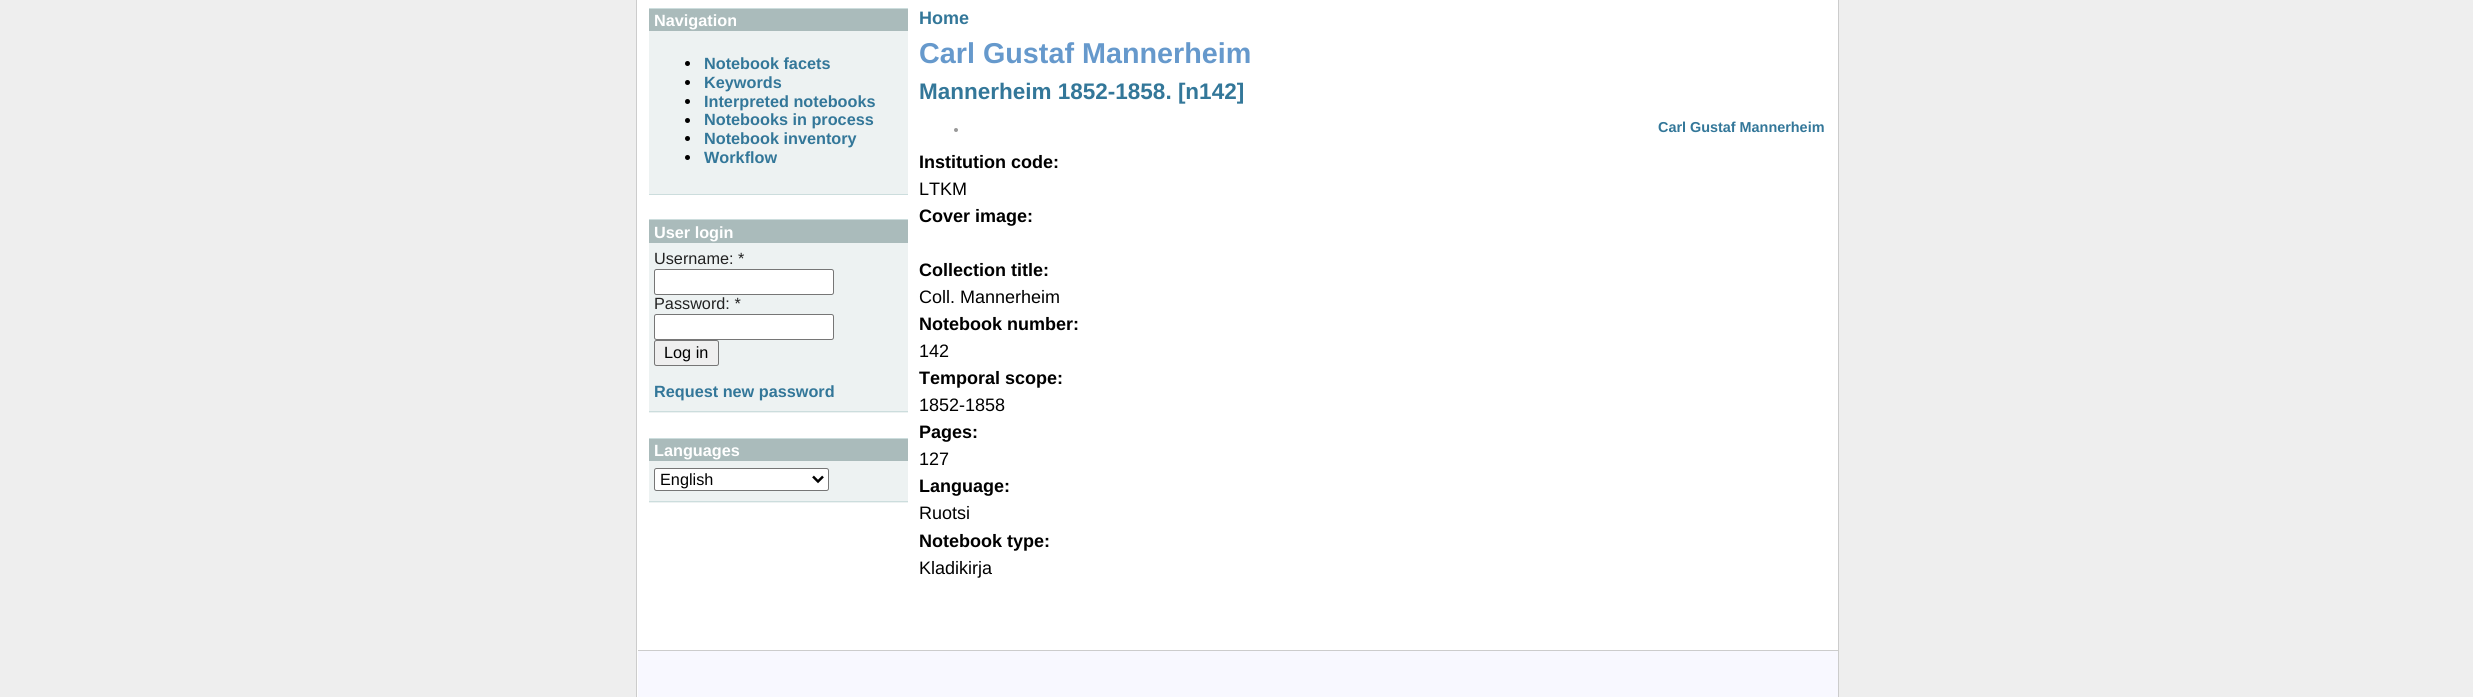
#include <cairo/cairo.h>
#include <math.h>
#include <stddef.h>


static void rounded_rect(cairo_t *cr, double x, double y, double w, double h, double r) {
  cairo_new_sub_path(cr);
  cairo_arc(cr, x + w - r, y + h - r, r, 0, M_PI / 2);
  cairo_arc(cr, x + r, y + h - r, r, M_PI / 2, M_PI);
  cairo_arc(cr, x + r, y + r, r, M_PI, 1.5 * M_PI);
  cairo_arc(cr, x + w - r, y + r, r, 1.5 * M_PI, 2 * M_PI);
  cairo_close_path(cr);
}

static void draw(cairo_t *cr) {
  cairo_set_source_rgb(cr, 238 / 255.0, 238 / 255.0, 238 / 255.0);
  cairo_paint(cr);
  cairo_set_source_rgb(cr, 1, 1, 1);
  cairo_rectangle(cr, 636.5, -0.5, 1202, 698);
  cairo_fill_preserve(cr);
  cairo_set_source_rgb(cr, 204 / 255.0, 204 / 255.0, 204 / 255.0);
  cairo_set_line_width(cr, 1);
  cairo_stroke(cr);
  cairo_set_source_rgb(cr, 237 / 255.0, 242 / 255.0, 242 / 255.0);
  cairo_rectangle(cr, 649, 31, 259, 163);
  cairo_fill(cr);
  cairo_set_source_rgb(cr, 204 / 255.0, 221 / 255.0, 221 / 255.0);
  cairo_rectangle(cr, 649, 8, 259, 1);
  cairo_fill(cr);
  cairo_rectangle(cr, 649, 194, 259, 1);
  cairo_fill(cr);
  cairo_set_source_rgb(cr, 170 / 255.0, 187 / 255.0, 187 / 255.0);
  cairo_rectangle(cr, 649, 9, 259, 22);
  cairo_fill(cr);
  cairo_set_source_rgb(cr, 0, 0, 0);
  cairo_arc(cr, 687.5, 63.5, 2.5, 0, 2 * M_PI);
  cairo_fill(cr);
  cairo_arc(cr, 687.5, 82.5, 2.5, 0, 2 * M_PI);
  cairo_fill(cr);
  cairo_arc(cr, 687.5, 101.5, 2.5, 0, 2 * M_PI);
  cairo_fill(cr);
  cairo_arc(cr, 687.5, 120.5, 2.5, 0, 2 * M_PI);
  cairo_fill(cr);
  cairo_arc(cr, 687.5, 138.5, 2.5, 0, 2 * M_PI);
  cairo_fill(cr);
  cairo_arc(cr, 687.5, 157.5, 2.5, 0, 2 * M_PI);
  cairo_fill(cr);
  cairo_set_source_rgb(cr, 237 / 255.0, 242 / 255.0, 242 / 255.0);
  cairo_rectangle(cr, 649, 243, 259, 170);
  cairo_fill(cr);
  cairo_set_source_rgb(cr, 204 / 255.0, 221 / 255.0, 221 / 255.0);
  cairo_rectangle(cr, 649, 219, 259, 1);
  cairo_fill(cr);
  cairo_rectangle(cr, 649, 411, 259, 1);
  cairo_fill(cr);
  cairo_set_source_rgb(cr, 170 / 255.0, 187 / 255.0, 187 / 255.0);
  cairo_rectangle(cr, 649, 220, 259, 23);
  cairo_fill(cr);
  cairo_set_source_rgb(cr, 1, 1, 1);
  rounded_rect(cr, 654.5, 269.5, 179, 25, 2);
  cairo_fill_preserve(cr);
  cairo_set_source_rgb(cr, 118 / 255.0, 118 / 255.0, 118 / 255.0);
  cairo_stroke(cr);
  cairo_set_source_rgb(cr, 1, 1, 1);
  rounded_rect(cr, 654.5, 314.5, 179, 25, 2);
  cairo_fill_preserve(cr);
  cairo_set_source_rgb(cr, 118 / 255.0, 118 / 255.0, 118 / 255.0);
  cairo_stroke(cr);
  cairo_set_source_rgb(cr, 239 / 255.0, 239 / 255.0, 239 / 255.0);
  rounded_rect(cr, 654.5, 340.5, 64, 25, 2);
  cairo_fill_preserve(cr);
  cairo_set_source_rgb(cr, 118 / 255.0, 118 / 255.0, 118 / 255.0);
  cairo_stroke(cr);
  cairo_set_source_rgb(cr, 237 / 255.0, 242 / 255.0, 242 / 255.0);
  cairo_rectangle(cr, 649, 461, 259, 42);
  cairo_fill(cr);
  cairo_set_source_rgb(cr, 204 / 255.0, 221 / 255.0, 221 / 255.0);
  cairo_rectangle(cr, 649, 438, 259, 1);
  cairo_fill(cr);
  cairo_rectangle(cr, 649, 501, 259, 1);
  cairo_fill(cr);
  cairo_set_source_rgb(cr, 170 / 255.0, 187 / 255.0, 187 / 255.0);
  cairo_rectangle(cr, 649, 439, 259, 22);
  cairo_fill(cr);
  cairo_set_source_rgb(cr, 1, 1, 1);
  rounded_rect(cr, 654.5, 468.5, 174, 22, 2);
  cairo_fill_preserve(cr);
  cairo_set_source_rgb(cr, 118 / 255.0, 118 / 255.0, 118 / 255.0);
  cairo_stroke(cr);
  cairo_new_path(cr);
  cairo_move_to(cr, 813, 476.5);
  cairo_line_to(cr, 818, 481.5);
  cairo_line_to(cr, 823, 476.5);
  cairo_set_source_rgb(cr, 0, 0, 0);
  cairo_set_line_width(cr, 2.5);
  cairo_stroke(cr);
  cairo_set_source_rgb(cr, 153 / 255.0, 153 / 255.0, 153 / 255.0);
  cairo_arc(cr, 956, 130, 2, 0, 2 * M_PI);
  cairo_fill(cr);
  cairo_set_source_rgb(cr, 248 / 255.0, 248 / 255.0, 1);
  cairo_rectangle(cr, 638, 651, 1200, 46);
  cairo_fill(cr);
  cairo_set_source_rgb(cr, 204 / 255.0, 204 / 255.0, 204 / 255.0);
  cairo_rectangle(cr, 638, 650, 1200, 1);
  cairo_fill(cr);
  cairo_select_font_face(cr, "Liberation Sans", CAIRO_FONT_SLANT_NORMAL, CAIRO_FONT_WEIGHT_BOLD);
  cairo_set_font_size(cr, 16.25);
  cairo_set_source_rgb(cr, 1, 1, 1);
  cairo_move_to(cr, 654, 26);
  cairo_show_text(cr, "Navigation");
  cairo_set_source_rgb(cr, 51 / 255.0, 119 / 255.0, 153 / 255.0);
  cairo_move_to(cr, 704, 69);
  cairo_show_text(cr, "Notebook facets");
  cairo_move_to(cr, 704, 88);
  cairo_show_text(cr, "Keywords");
  cairo_move_to(cr, 704, 107);
  cairo_show_text(cr, "Interpreted notebooks");
  cairo_move_to(cr, 704, 125);
  cairo_show_text(cr, "Notebooks in process");
  cairo_move_to(cr, 704, 144);
  cairo_show_text(cr, "Notebook inventory");
  cairo_move_to(cr, 704, 163);
  cairo_show_text(cr, "Workflow");
  cairo_set_source_rgb(cr, 1, 1, 1);
  cairo_move_to(cr, 654, 238);
  cairo_show_text(cr, "User login");
  cairo_select_font_face(cr, "Liberation Sans", CAIRO_FONT_SLANT_NORMAL, CAIRO_FONT_WEIGHT_NORMAL);
  cairo_set_source_rgb(cr, 34 / 255.0, 34 / 255.0, 34 / 255.0);
  cairo_move_to(cr, 654, 264);
  cairo_show_text(cr, "Username: *");
  cairo_move_to(cr, 654, 309);
  cairo_show_text(cr, "Password: *");
  cairo_set_source_rgb(cr, 0, 0, 0);
  cairo_move_to(cr, 664, 358);
  cairo_show_text(cr, "Log in");
  cairo_select_font_face(cr, "Liberation Sans", CAIRO_FONT_SLANT_NORMAL, CAIRO_FONT_WEIGHT_BOLD);
  cairo_set_source_rgb(cr, 51 / 255.0, 119 / 255.0, 153 / 255.0);
  cairo_move_to(cr, 654, 397);
  cairo_show_text(cr, "Request new password");
  cairo_set_source_rgb(cr, 1, 1, 1);
  cairo_move_to(cr, 654, 456);
  cairo_show_text(cr, "Languages");
  cairo_select_font_face(cr, "Liberation Sans", CAIRO_FONT_SLANT_NORMAL, CAIRO_FONT_WEIGHT_NORMAL);
  cairo_set_source_rgb(cr, 0, 0, 0);
  cairo_move_to(cr, 660, 485);
  cairo_show_text(cr, "English");
  cairo_select_font_face(cr, "Liberation Sans", CAIRO_FONT_SLANT_NORMAL, CAIRO_FONT_WEIGHT_BOLD);
  cairo_set_font_size(cr, 18);
  cairo_set_source_rgb(cr, 51 / 255.0, 119 / 255.0, 153 / 255.0);
  cairo_move_to(cr, 919, 24);
  cairo_show_text(cr, "Home");
  cairo_set_font_size(cr, 28.75);
  cairo_set_source_rgb(cr, 102 / 255.0, 153 / 255.0, 204 / 255.0);
  cairo_move_to(cr, 919, 63);
  cairo_show_text(cr, "Carl Gustaf Mannerheim");
  cairo_set_font_size(cr, 22.5);
  cairo_set_source_rgb(cr, 51 / 255.0, 119 / 255.0, 153 / 255.0);
  cairo_move_to(cr, 919, 99);
  cairo_show_text(cr, "Mannerheim 1852-1858. [n142]");
  cairo_set_font_size(cr, 14.4);
  cairo_move_to(cr, 1658, 132);
  cairo_show_text(cr, "Carl Gustaf Mannerheim");
  cairo_set_font_size(cr, 18);
  cairo_set_source_rgb(cr, 0, 0, 0);
  cairo_move_to(cr, 919, 168);
  cairo_show_text(cr, "Institution code:");
  cairo_select_font_face(cr, "Liberation Sans", CAIRO_FONT_SLANT_NORMAL, CAIRO_FONT_WEIGHT_NORMAL);
  cairo_move_to(cr, 919, 195);
  cairo_show_text(cr, "LTKM");
  cairo_select_font_face(cr, "Liberation Sans", CAIRO_FONT_SLANT_NORMAL, CAIRO_FONT_WEIGHT_BOLD);
  cairo_move_to(cr, 919, 222);
  cairo_show_text(cr, "Cover image:");
  cairo_move_to(cr, 919, 276);
  cairo_show_text(cr, "Collection title:");
  cairo_select_font_face(cr, "Liberation Sans", CAIRO_FONT_SLANT_NORMAL, CAIRO_FONT_WEIGHT_NORMAL);
  cairo_move_to(cr, 919, 303);
  cairo_show_text(cr, "Coll. Mannerheim");
  cairo_select_font_face(cr, "Liberation Sans", CAIRO_FONT_SLANT_NORMAL, CAIRO_FONT_WEIGHT_BOLD);
  cairo_move_to(cr, 919, 330);
  cairo_show_text(cr, "Notebook number:");
  cairo_select_font_face(cr, "Liberation Sans", CAIRO_FONT_SLANT_NORMAL, CAIRO_FONT_WEIGHT_NORMAL);
  cairo_move_to(cr, 919, 357);
  cairo_show_text(cr, "142");
  cairo_select_font_face(cr, "Liberation Sans", CAIRO_FONT_SLANT_NORMAL, CAIRO_FONT_WEIGHT_BOLD);
  cairo_move_to(cr, 919, 384);
  cairo_show_text(cr, "Temporal scope:");
  cairo_select_font_face(cr, "Liberation Sans", CAIRO_FONT_SLANT_NORMAL, CAIRO_FONT_WEIGHT_NORMAL);
  cairo_move_to(cr, 919, 411);
  cairo_show_text(cr, "1852-1858");
  cairo_select_font_face(cr, "Liberation Sans", CAIRO_FONT_SLANT_NORMAL, CAIRO_FONT_WEIGHT_BOLD);
  cairo_move_to(cr, 919, 438);
  cairo_show_text(cr, "Pages:");
  cairo_select_font_face(cr, "Liberation Sans", CAIRO_FONT_SLANT_NORMAL, CAIRO_FONT_WEIGHT_NORMAL);
  cairo_move_to(cr, 919, 465);
  cairo_show_text(cr, "127");
  cairo_select_font_face(cr, "Liberation Sans", CAIRO_FONT_SLANT_NORMAL, CAIRO_FONT_WEIGHT_BOLD);
  cairo_move_to(cr, 919, 492);
  cairo_show_text(cr, "Language:");
  cairo_select_font_face(cr, "Liberation Sans", CAIRO_FONT_SLANT_NORMAL, CAIRO_FONT_WEIGHT_NORMAL);
  cairo_move_to(cr, 919, 519);
  cairo_show_text(cr, "Ruotsi");
  cairo_select_font_face(cr, "Liberation Sans", CAIRO_FONT_SLANT_NORMAL, CAIRO_FONT_WEIGHT_BOLD);
  cairo_move_to(cr, 919, 547);
  cairo_show_text(cr, "Notebook type:");
  cairo_select_font_face(cr, "Liberation Sans", CAIRO_FONT_SLANT_NORMAL, CAIRO_FONT_WEIGHT_NORMAL);
  cairo_move_to(cr, 919, 574);
  cairo_show_text(cr, "Kladikirja");
}

int main(void) {
  cairo_surface_t *surface = cairo_image_surface_create(CAIRO_FORMAT_RGB24, 2473, 697);
  cairo_t *cr = cairo_create(surface);
  cairo_font_options_t *options = cairo_font_options_create();
  cairo_font_options_set_hint_metrics(options, CAIRO_HINT_METRICS_OFF);
  cairo_font_options_set_hint_style(options, CAIRO_HINT_STYLE_NONE);
  cairo_set_font_options(cr, options);
  cairo_set_miter_limit(cr, 4);
  draw(cr);
  cairo_surface_write_to_png(surface, "out.png");
  cairo_font_options_destroy(options);
  cairo_destroy(cr);
  cairo_surface_destroy(surface);
  return 0;
}
